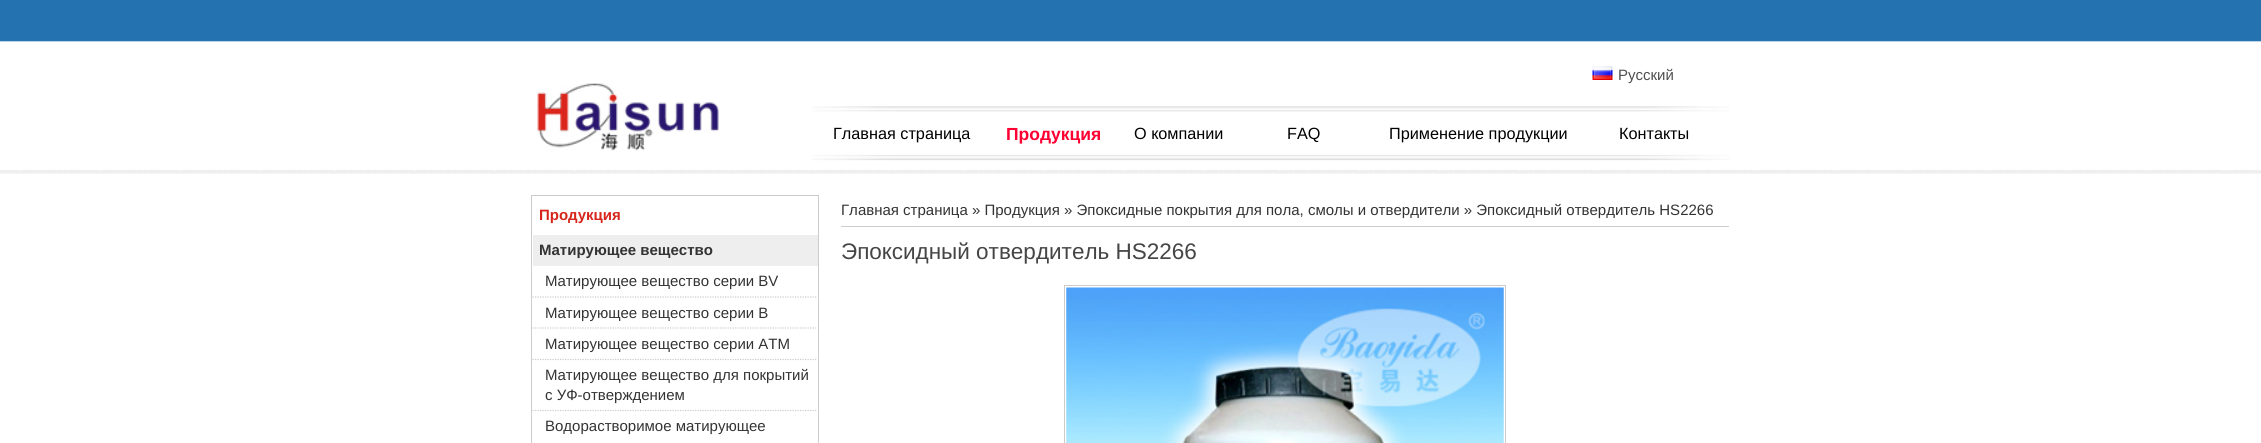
#include <cairo.h>
#include <math.h>
#include <stddef.h>


static void set_color(cairo_t *cr, unsigned color) {
    cairo_set_source_rgb(cr, (color >> 16) / 255.0, (color >> 8 & 255) / 255.0, (color & 255) / 255.0);
}

static void draw_text(cairo_t *cr, double x, double y, const char *s, const char *family, double size, int italic, int bold, unsigned color) {
    cairo_select_font_face(cr, family, italic ? CAIRO_FONT_SLANT_ITALIC : CAIRO_FONT_SLANT_NORMAL,
        bold ? CAIRO_FONT_WEIGHT_BOLD : CAIRO_FONT_WEIGHT_NORMAL);
    cairo_set_font_size(cr, size);
    set_color(cr, color);
    cairo_move_to(cr, x, y);
    cairo_show_text(cr, s);
}

static void fill_rect(cairo_t *cr, double x, double y, double w, double h, unsigned color) {
    set_color(cr, color);
    cairo_rectangle(cr, x, y, w, h);
    cairo_fill(cr);
}

static void draw_image(cairo_t *cr, const char *path, double x, double y, double w, double h) {
    cairo_surface_t *image = cairo_image_surface_create_from_png(path);
    cairo_save(cr);
    cairo_set_source_surface(cr, image, x, y);
    cairo_rectangle(cr, x, y, w, h);
    cairo_fill(cr);
    cairo_restore(cr);
    cairo_surface_destroy(image);
}

int main(void) {
    cairo_surface_t *surface = cairo_image_surface_create(CAIRO_FORMAT_RGB24, 2261, 443);
    cairo_t *cr = cairo_create(surface);
    cairo_font_options_t *options = cairo_font_options_create();
    cairo_font_options_set_hint_metrics(options, CAIRO_HINT_METRICS_OFF);
    cairo_font_options_set_hint_style(options, CAIRO_HINT_STYLE_NONE);
    cairo_set_font_options(cr, options);
    cairo_set_miter_limit(cr, 4);
    set_color(cr, 0xFFFFFF);
    cairo_paint(cr);
    draw_image(cr, "assets/img1.png", 0, 0, 2261, 174);
    draw_image(cr, "assets/img2.png", 1592, 66, 21, 14);
    draw_text(cr, 1618, 80, "Русский", "Liberation Sans", 15, 0, 0, 0x504F4F);
    draw_image(cr, "assets/img3.png", 537, 83, 182, 68);
    draw_image(cr, "assets/img4.png", 812, 106, 918, 55);
    draw_text(cr, 833, 139, "Главная страница", "Liberation Sans", 16.25, 0, 0, 0x000000);
    draw_text(cr, 1006, 140, "Продукция", "Liberation Sans", 17.5, 0, 1, 0xFF0033);
    draw_text(cr, 1134, 139, "О компании", "Liberation Sans", 16.25, 0, 0, 0x000000);
    draw_text(cr, 1287, 139, "FAQ", "Liberation Sans", 16.25, 0, 0, 0x000000);
    draw_text(cr, 1389, 139, "Применение продукции", "Liberation Sans", 16.25, 0, 0, 0x000000);
    draw_text(cr, 1619, 139, "Контакты", "Liberation Sans", 16.25, 0, 0, 0x000000);
    cairo_rectangle(cr, 531.5, 195.5, 287, 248);
    set_color(cr, 0xCCCCCC);
    cairo_set_line_width(cr, 1);
    cairo_stroke(cr);
    draw_text(cr, 539, 220, "Продукция", "Liberation Sans", 15, 0, 1, 0xD6251C);
    fill_rect(cr, 533, 235, 285, 31, 0xEEEEEE);
    draw_text(cr, 539, 255, "Матирующее вещество", "Liberation Sans", 15, 0, 1, 0x333333);
    cairo_new_path(cr);
    cairo_move_to(cr, 532.5, 297);
    cairo_line_to(cr, 817.5, 297);
    set_color(cr, 0xCCCCCC);
    cairo_set_line_width(cr, 1.2);
    cairo_set_dash(cr, (double[]){1.25, 1.25}, 2, 0);
    cairo_stroke(cr);
    draw_text(cr, 545, 286, "Матирующее вещество серии BV", "Liberation Sans", 15, 0, 0, 0x333333);
    cairo_new_path(cr);
    cairo_move_to(cr, 532.5, 328);
    cairo_line_to(cr, 817.5, 328);
    set_color(cr, 0xCCCCCC);
    cairo_stroke(cr);
    draw_text(cr, 545, 318, "Матирующее вещество серии B", "Liberation Sans", 15, 0, 0, 0x333333);
    cairo_new_path(cr);
    cairo_move_to(cr, 532.5, 359.5);
    cairo_line_to(cr, 817.5, 359.5);
    set_color(cr, 0xCCCCCC);
    cairo_stroke(cr);
    draw_text(cr, 545, 349, "Матирующее вещество серии ATM", "Liberation Sans", 15, 0, 0, 0x333333);
    cairo_new_path(cr);
    cairo_move_to(cr, 532.5, 410.5);
    cairo_line_to(cr, 817.5, 410.5);
    set_color(cr, 0xCCCCCC);
    cairo_stroke(cr);
    draw_text(cr, 545, 380, "Матирующее вещество для покрытий", "Liberation Sans", 15, 0, 0, 0x333333);
    draw_text(cr, 545, 400, "с УФ-отверждением", "Liberation Sans", 15, 0, 0, 0x333333);
    draw_text(cr, 545, 431, "Водорастворимое матирующее", "Liberation Sans", 15, 0, 0, 0x333333);
    fill_rect(cr, 841, 226, 888, 1, 0xCCCCCC);
    draw_text(cr, 841, 215, "Главная страница » Продукция » Эпоксидные покрытия для пола, смолы и отвердители » Эпоксидный отвердитель HS2266", "Liberation Sans", 15, 0, 0, 0x333333);
    draw_text(cr, 841, 259, "Эпоксидный отвердитель HS2266", "Liberation Sans", 22.5, 0, 0, 0x454545);
    cairo_rectangle(cr, 1064.5, 285.5, 441, 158);
    set_color(cr, 0xCCCCCC);
    cairo_set_line_width(cr, 1);
    cairo_set_dash(cr, NULL, 0, 0);
    cairo_stroke(cr);
    draw_image(cr, "assets/img5.png", 1066, 287, 438, 156);
    cairo_surface_write_to_png(surface, "output.png");
    cairo_font_options_destroy(options);
    cairo_destroy(cr);
    cairo_surface_destroy(surface);
    return 0;
}
